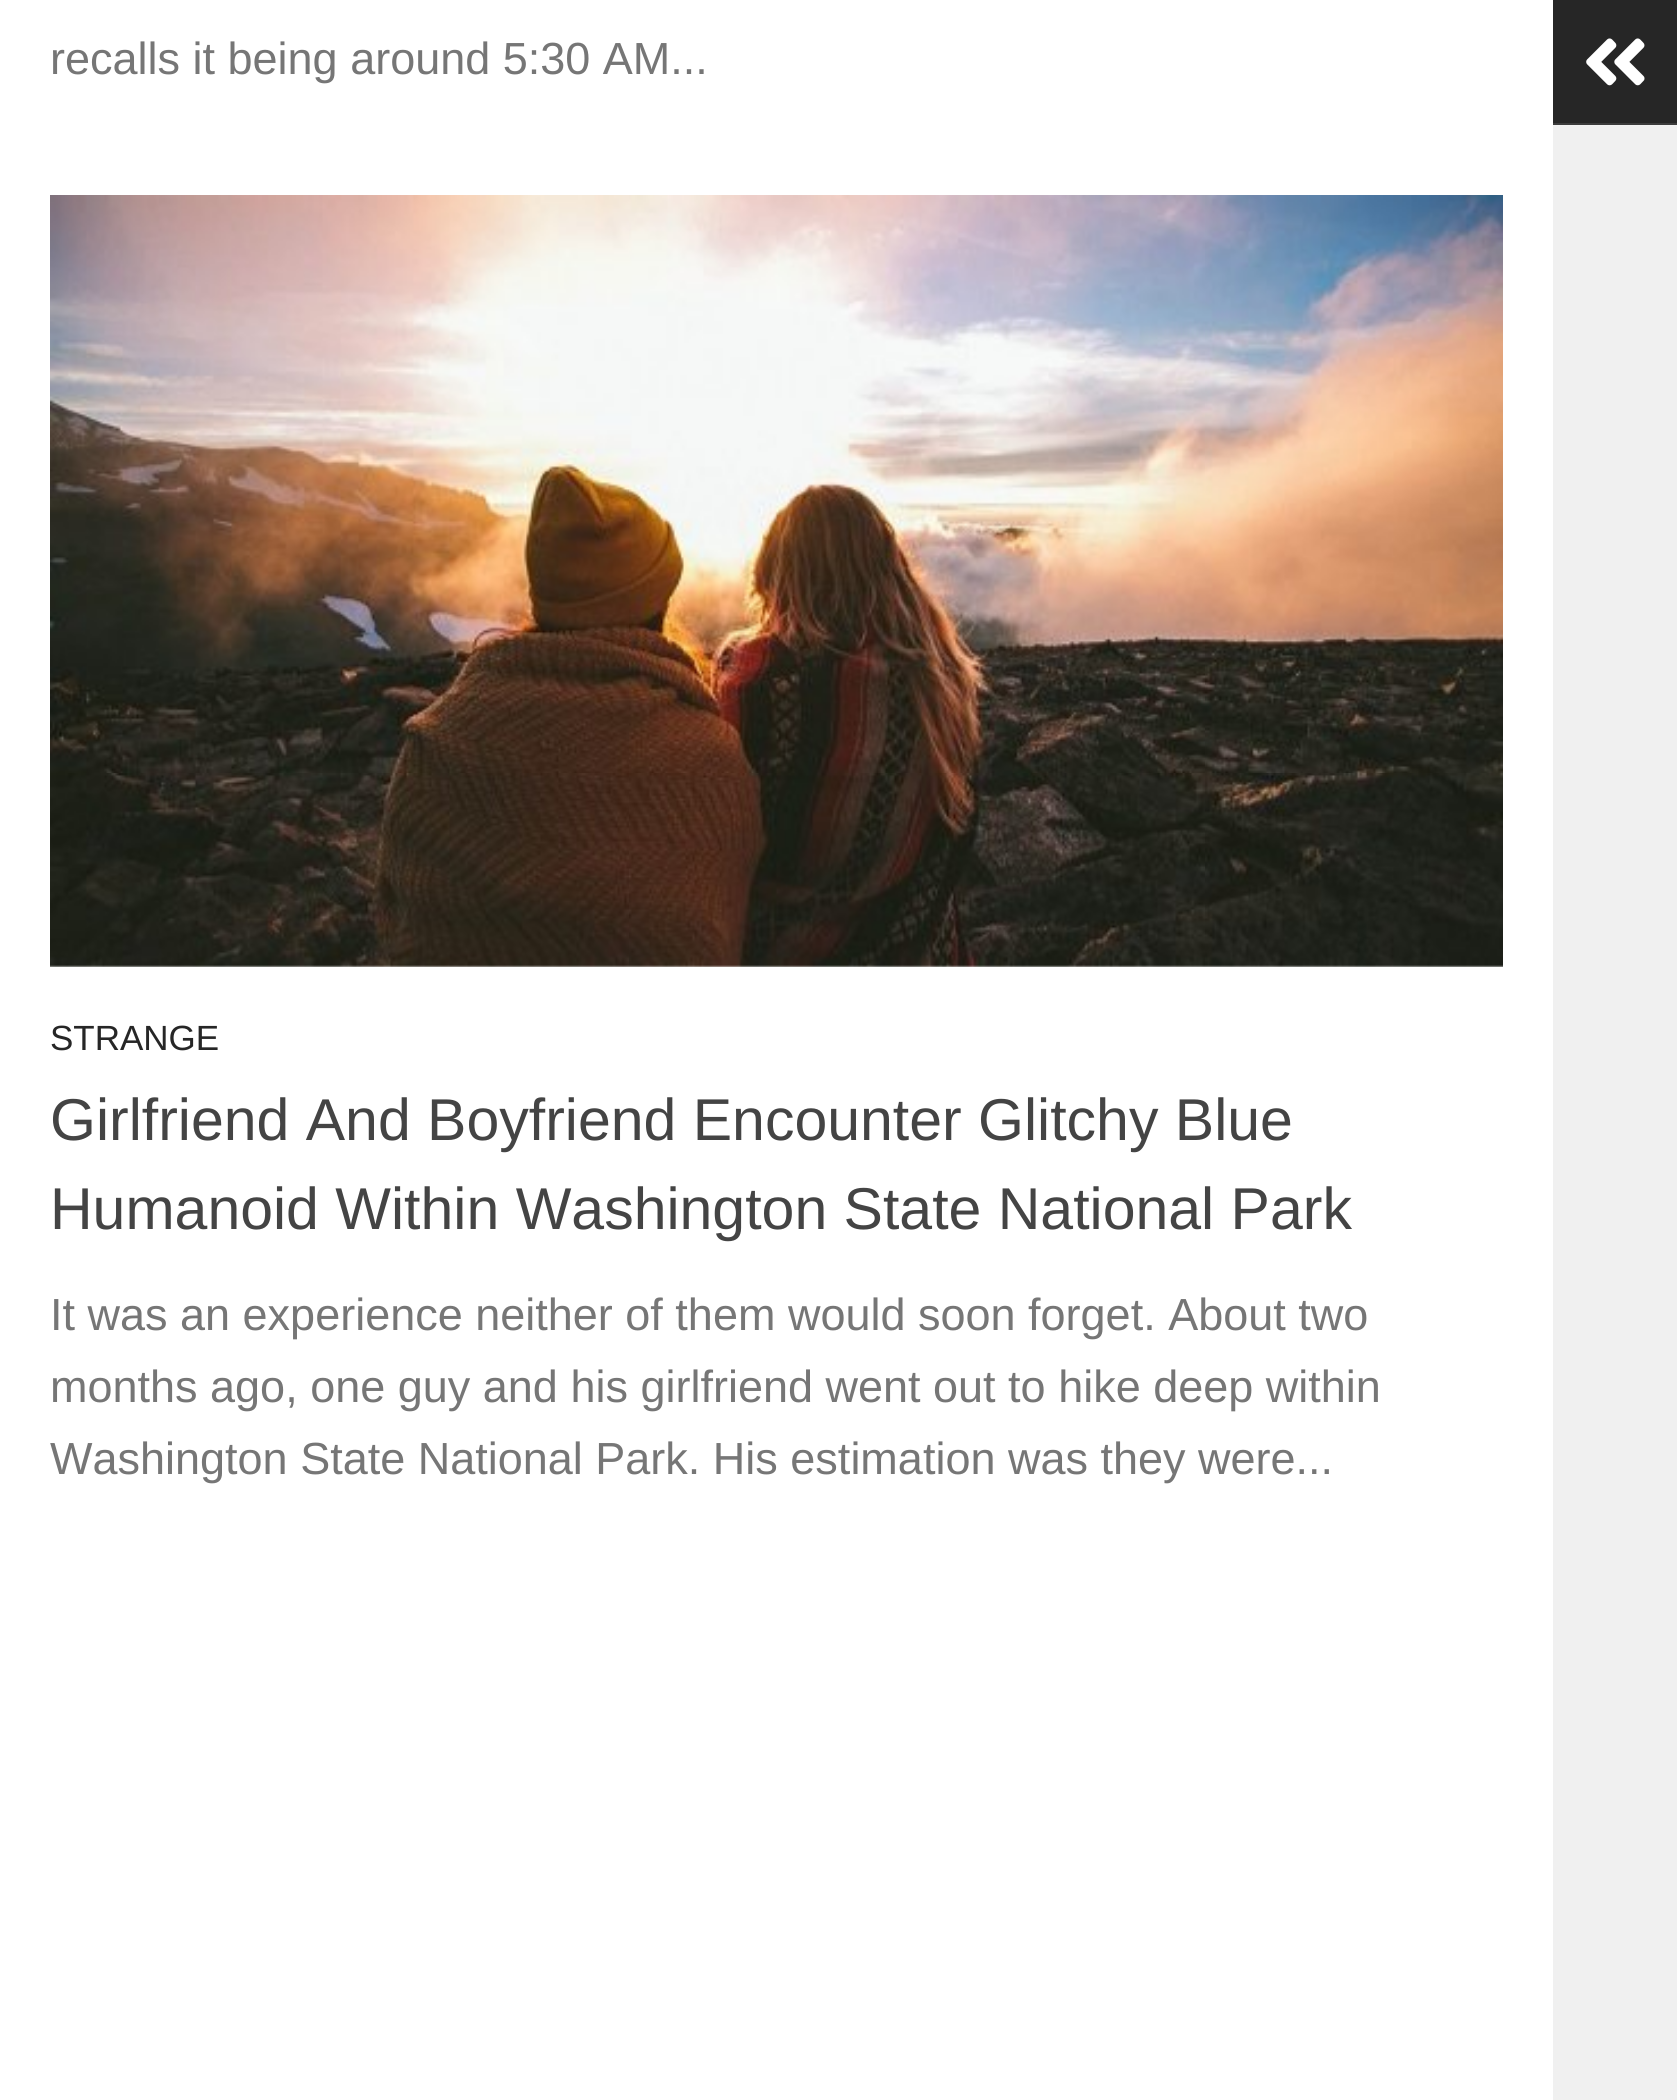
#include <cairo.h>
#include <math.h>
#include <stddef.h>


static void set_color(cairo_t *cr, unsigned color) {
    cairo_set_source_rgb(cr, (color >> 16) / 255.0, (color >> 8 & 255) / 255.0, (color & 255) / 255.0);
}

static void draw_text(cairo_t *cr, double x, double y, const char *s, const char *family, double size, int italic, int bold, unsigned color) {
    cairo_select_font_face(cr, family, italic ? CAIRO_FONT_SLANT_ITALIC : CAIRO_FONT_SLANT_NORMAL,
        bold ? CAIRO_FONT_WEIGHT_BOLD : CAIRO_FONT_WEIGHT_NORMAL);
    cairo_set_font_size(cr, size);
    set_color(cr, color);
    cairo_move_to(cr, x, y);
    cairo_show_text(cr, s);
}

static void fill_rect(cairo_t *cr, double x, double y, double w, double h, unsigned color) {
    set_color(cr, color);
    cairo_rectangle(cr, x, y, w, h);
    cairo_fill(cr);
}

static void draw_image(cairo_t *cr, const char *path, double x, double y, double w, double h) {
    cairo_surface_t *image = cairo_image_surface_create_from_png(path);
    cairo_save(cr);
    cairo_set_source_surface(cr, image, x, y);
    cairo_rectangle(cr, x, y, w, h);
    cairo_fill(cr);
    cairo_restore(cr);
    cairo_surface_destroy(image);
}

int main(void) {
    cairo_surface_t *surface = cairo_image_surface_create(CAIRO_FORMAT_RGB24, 1677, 2100);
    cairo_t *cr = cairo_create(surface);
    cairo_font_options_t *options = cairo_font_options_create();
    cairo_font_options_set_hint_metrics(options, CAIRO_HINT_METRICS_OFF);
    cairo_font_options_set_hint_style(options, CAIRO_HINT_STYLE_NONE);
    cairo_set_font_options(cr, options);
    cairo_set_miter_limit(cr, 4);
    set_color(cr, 0xFFFFFF);
    cairo_paint(cr);
    draw_text(cr, 50, 74, "recalls it being around 5:30 AM...", "Liberation Sans", 45, 0, 0, 0x767676);
    draw_image(cr, "assets/img1.png", 50, 195, 1453, 772);
    draw_text(cr, 50, 1050, "STRANGE", "Liberation Sans", 35, 0, 0, 0x262626);
    draw_text(cr, 50, 1140, "Girlfriend And Boyfriend Encounter Glitchy Blue", "Liberation Sans", 59, 0, 0, 0x444444);
    draw_text(cr, 50, 1229, "Humanoid Within Washington State National Park", "Liberation Sans", 59, 0, 0, 0x444444);
    draw_text(cr, 50, 1330, "It was an experience neither of them would soon forget. About two", "Liberation Sans", 45, 0, 0, 0x767676);
    draw_text(cr, 50, 1402, "months ago, one guy and his girlfriend went out to hike deep within", "Liberation Sans", 45, 0, 0, 0x767676);
    draw_text(cr, 50, 1474, "Washington State National Park. His estimation was they were...", "Liberation Sans", 45, 0, 0, 0x767676);
    fill_rect(cr, 1553, 0, 124, 123, 0x262626);
    fill_rect(cr, 1553, 123, 124, 2, 0x3C3C3C);
    draw_image(cr, "assets/img2.png", 1586, 38, 59, 48);
    fill_rect(cr, 1553, 126, 124, 1974, 0xF0F0F0);
    fill_rect(cr, 1553, 125, 124, 1, 0xF2F2F2);
    cairo_surface_write_to_png(surface, "output.png");
    cairo_font_options_destroy(options);
    cairo_destroy(cr);
    cairo_surface_destroy(surface);
    return 0;
}
